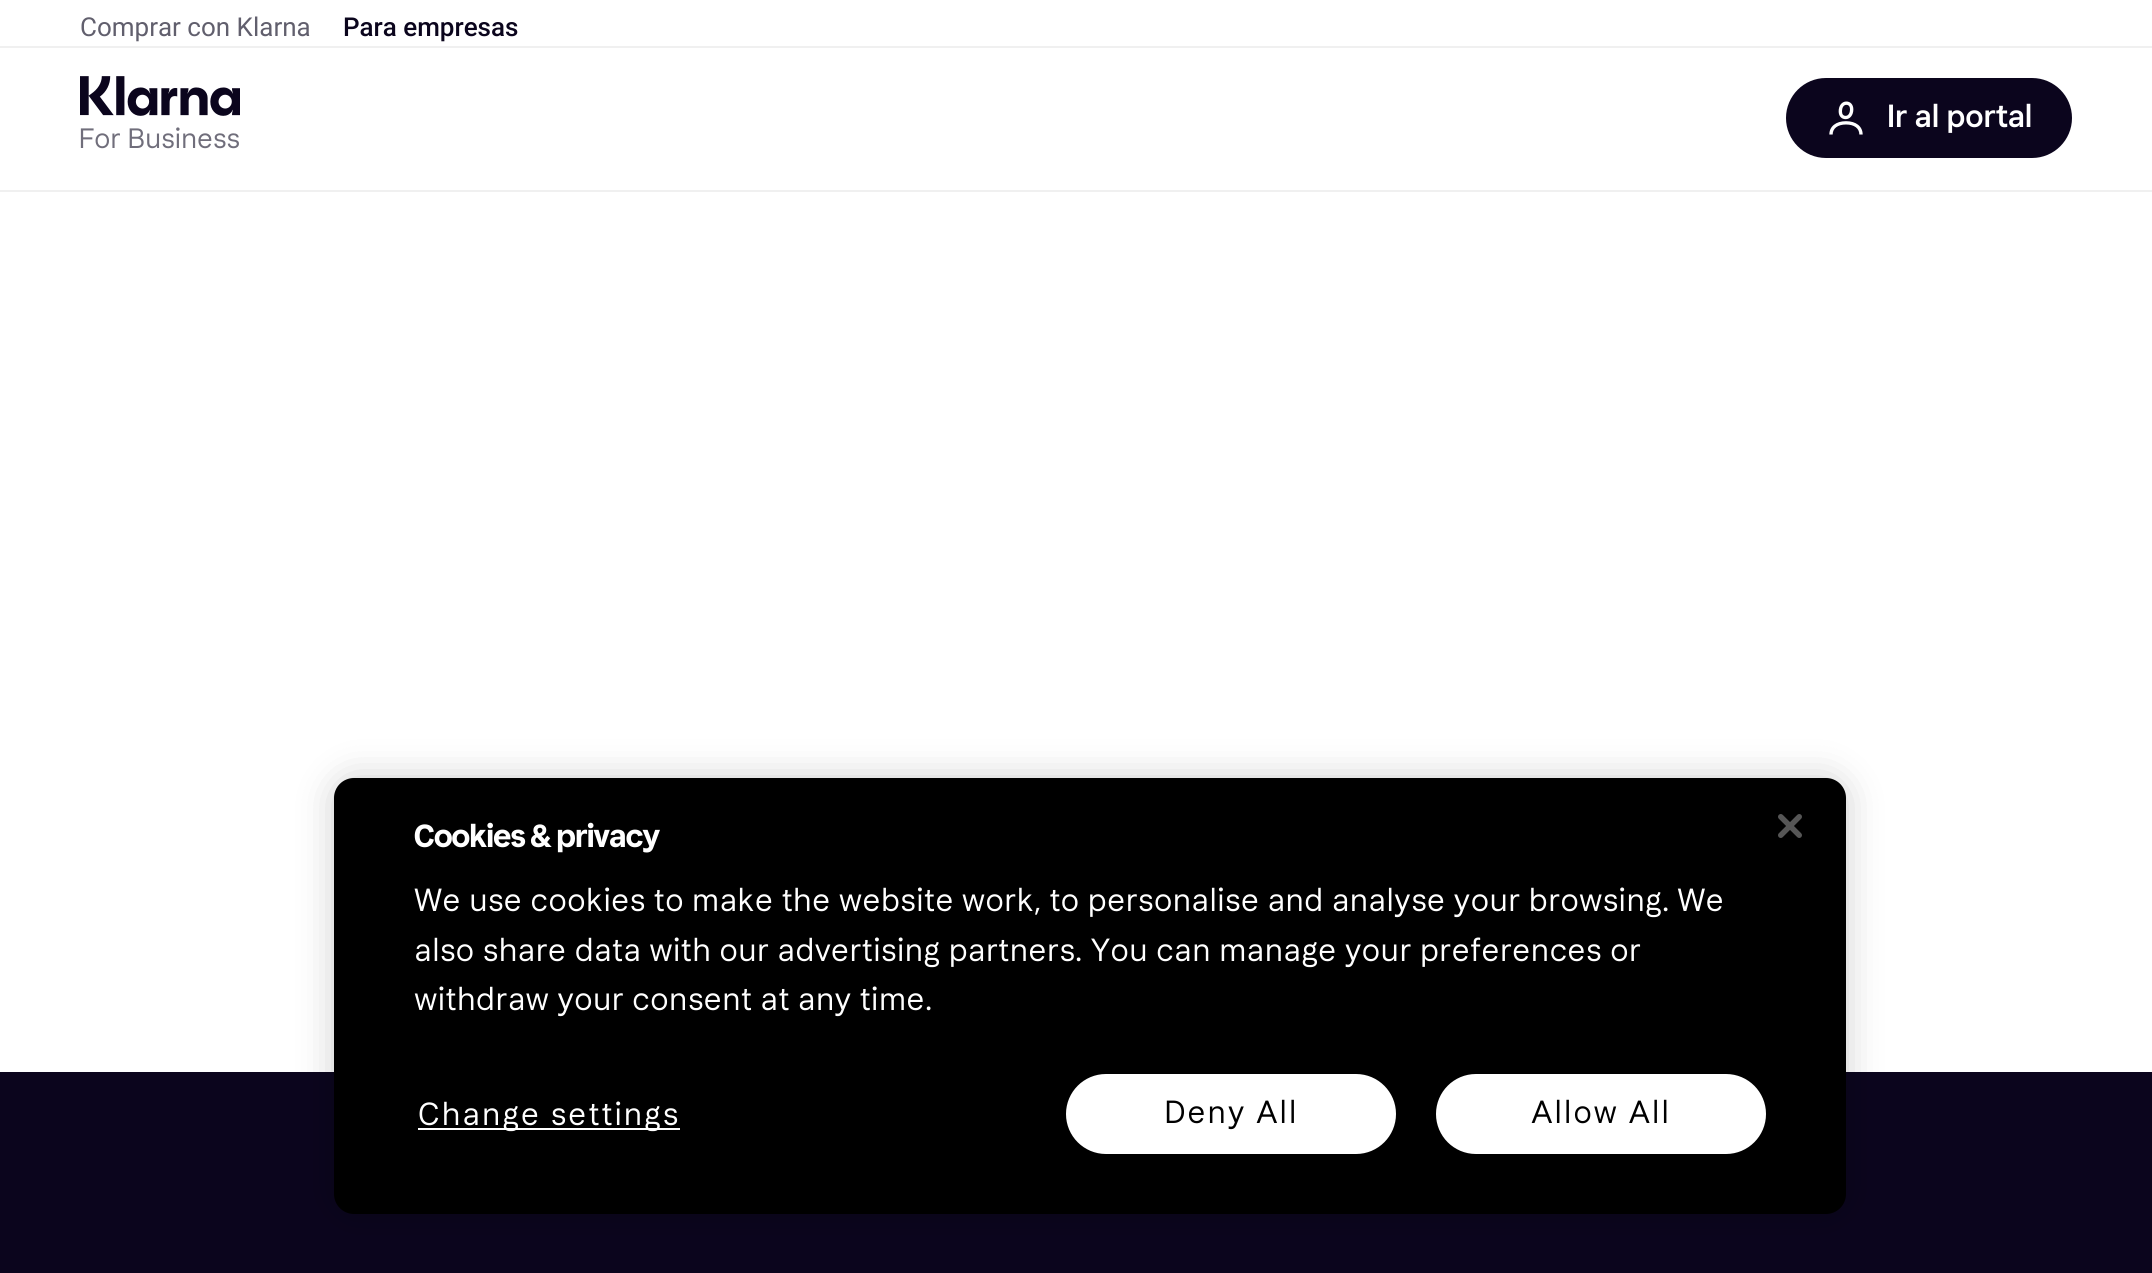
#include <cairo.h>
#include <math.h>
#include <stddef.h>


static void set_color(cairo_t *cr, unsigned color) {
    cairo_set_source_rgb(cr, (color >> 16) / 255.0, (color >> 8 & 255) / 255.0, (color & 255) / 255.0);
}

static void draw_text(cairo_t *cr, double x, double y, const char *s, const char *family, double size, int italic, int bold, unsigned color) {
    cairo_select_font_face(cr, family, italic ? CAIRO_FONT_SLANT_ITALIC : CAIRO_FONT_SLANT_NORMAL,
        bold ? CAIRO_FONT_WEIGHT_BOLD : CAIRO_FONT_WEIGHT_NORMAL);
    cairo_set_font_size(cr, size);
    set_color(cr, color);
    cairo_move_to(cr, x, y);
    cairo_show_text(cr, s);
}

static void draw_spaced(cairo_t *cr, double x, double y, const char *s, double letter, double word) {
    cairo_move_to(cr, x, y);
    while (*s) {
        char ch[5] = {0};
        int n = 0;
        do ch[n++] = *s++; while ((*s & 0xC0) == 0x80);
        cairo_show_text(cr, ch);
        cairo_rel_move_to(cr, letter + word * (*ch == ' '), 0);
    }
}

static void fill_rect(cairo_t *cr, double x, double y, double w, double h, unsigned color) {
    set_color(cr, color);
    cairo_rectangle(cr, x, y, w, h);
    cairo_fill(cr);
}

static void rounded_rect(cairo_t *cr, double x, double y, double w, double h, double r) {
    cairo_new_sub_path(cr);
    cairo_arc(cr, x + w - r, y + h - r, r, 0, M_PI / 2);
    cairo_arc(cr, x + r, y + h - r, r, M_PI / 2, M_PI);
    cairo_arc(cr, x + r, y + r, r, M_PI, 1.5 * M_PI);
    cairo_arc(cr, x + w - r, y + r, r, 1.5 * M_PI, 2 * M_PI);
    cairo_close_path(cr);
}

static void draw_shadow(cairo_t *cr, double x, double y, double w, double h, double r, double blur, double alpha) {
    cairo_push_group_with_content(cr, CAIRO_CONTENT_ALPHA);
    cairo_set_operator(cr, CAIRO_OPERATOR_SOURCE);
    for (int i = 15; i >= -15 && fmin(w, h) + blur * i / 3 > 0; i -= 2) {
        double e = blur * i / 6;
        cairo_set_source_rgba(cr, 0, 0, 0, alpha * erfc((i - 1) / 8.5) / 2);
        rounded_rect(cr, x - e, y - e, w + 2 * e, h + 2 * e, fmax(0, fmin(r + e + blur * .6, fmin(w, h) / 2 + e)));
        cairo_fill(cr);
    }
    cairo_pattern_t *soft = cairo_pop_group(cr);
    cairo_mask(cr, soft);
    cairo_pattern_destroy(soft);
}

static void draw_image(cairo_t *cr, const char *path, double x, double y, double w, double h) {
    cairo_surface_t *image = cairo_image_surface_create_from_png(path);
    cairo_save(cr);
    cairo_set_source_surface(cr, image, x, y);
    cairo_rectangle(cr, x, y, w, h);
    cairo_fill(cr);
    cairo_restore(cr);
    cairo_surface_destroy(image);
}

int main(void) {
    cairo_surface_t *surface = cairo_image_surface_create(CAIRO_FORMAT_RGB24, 2152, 1273);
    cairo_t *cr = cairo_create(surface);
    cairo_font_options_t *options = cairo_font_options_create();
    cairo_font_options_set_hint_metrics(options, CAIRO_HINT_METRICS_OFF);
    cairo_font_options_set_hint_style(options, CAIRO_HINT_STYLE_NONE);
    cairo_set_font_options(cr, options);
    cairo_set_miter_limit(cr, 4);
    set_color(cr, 0xFFFFFF);
    cairo_paint(cr);
    fill_rect(cr, 0, 190, 2152, 2, 0xF0F0F0);
    draw_text(cr, 80, 36, "Comprar con Klarna", "Roboto", 26, 0, 0, 0x615F6D);
    draw_text(cr, 343, 36, "Para empresas", "Roboto Medium", 26, 0, 0, 0x0B051D);
    fill_rect(cr, 0, 46, 2152, 2, 0xF0F0F0);
    draw_image(cr, "assets/img1.png", 80, 76, 160, 73);
    set_color(cr, 0x0B051D);
    rounded_rect(cr, 1786, 78, 286, 80, 40);
    cairo_fill(cr);
    draw_image(cr, "assets/img2.png", 1829, 101, 34, 34);
    cairo_select_font_face(cr, "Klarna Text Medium", CAIRO_FONT_SLANT_NORMAL, CAIRO_FONT_WEIGHT_NORMAL);
    cairo_set_font_size(cr, 32);
    set_color(cr, 0xFFFFFF);
    draw_spaced(cr, 1887, 127, "Ir al portal", -0.1, 0);
    fill_rect(cr, 0, 1072, 2152, 201, 0x0B051D);
    set_color(cr, 0x000000);
    draw_shadow(cr, 334, 778, 1512, 436, 20, 18, 0.2);
    set_color(cr, 0x000000);
    rounded_rect(cr, 334, 778, 1512, 436, 20);
    cairo_fill(cr);
    cairo_select_font_face(cr, "Klarna Text", CAIRO_FONT_SLANT_NORMAL, CAIRO_FONT_WEIGHT_BOLD);
    set_color(cr, 0xFFFFFF);
    draw_spaced(cr, 414, 847, "Cookies & privacy", -0.4, 0);
    draw_text(cr, 414, 911, "We use cookies to make the website work, to personalise and analyse your browsing. We", "Klarna Text", 32, 0, 0, 0xFFFFFF);
    draw_text(cr, 414, 961, "also share data with our advertising partners. You can manage your preferences or", "Klarna Text", 32, 0, 0, 0xFFFFFF);
    draw_text(cr, 414, 1010, "withdraw your consent at any time.", "Klarna Text", 32, 0, 0, 0xFFFFFF);
    draw_image(cr, "assets/img3.png", 1778, 814, 24, 24);
    fill_rect(cr, 418, 1128, 262, 2, 0xFFFFFF);
    draw_spaced(cr, 418, 1125, "Change settings", 1.6, 0);
    rounded_rect(cr, 1067, 1075, 328, 78, 39);
    cairo_fill_preserve(cr);
    cairo_stroke(cr);
    set_color(cr, 0x000000);
    draw_spaced(cr, 1164, 1123, "Deny All", 1.6, 0);
    set_color(cr, 0xFFFFFF);
    rounded_rect(cr, 1437, 1075, 328, 78, 39);
    cairo_fill_preserve(cr);
    cairo_stroke(cr);
    set_color(cr, 0x000000);
    draw_spaced(cr, 1531, 1123, "Allow All", 1.6, 0);
    cairo_surface_write_to_png(surface, "output.png");
    cairo_font_options_destroy(options);
    cairo_destroy(cr);
    cairo_surface_destroy(surface);
    return 0;
}
